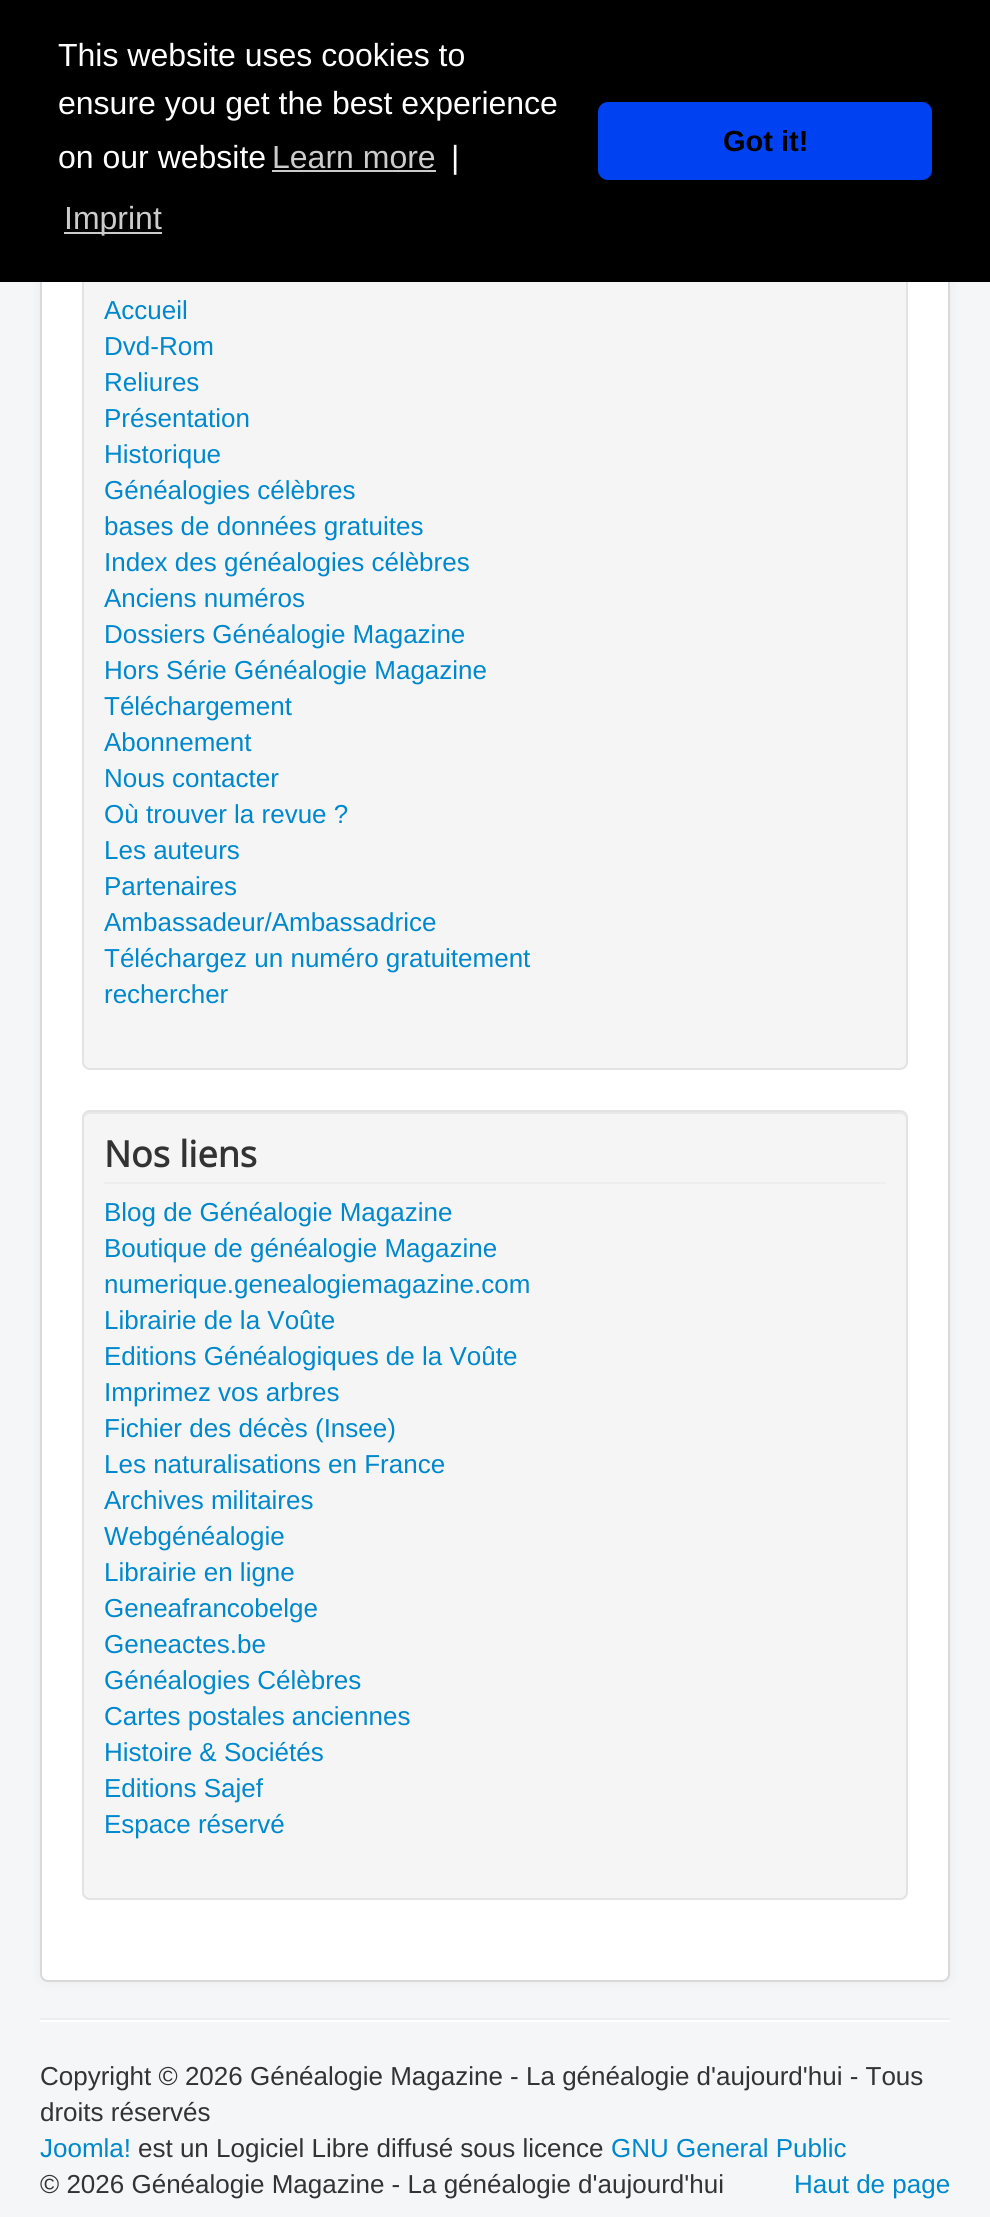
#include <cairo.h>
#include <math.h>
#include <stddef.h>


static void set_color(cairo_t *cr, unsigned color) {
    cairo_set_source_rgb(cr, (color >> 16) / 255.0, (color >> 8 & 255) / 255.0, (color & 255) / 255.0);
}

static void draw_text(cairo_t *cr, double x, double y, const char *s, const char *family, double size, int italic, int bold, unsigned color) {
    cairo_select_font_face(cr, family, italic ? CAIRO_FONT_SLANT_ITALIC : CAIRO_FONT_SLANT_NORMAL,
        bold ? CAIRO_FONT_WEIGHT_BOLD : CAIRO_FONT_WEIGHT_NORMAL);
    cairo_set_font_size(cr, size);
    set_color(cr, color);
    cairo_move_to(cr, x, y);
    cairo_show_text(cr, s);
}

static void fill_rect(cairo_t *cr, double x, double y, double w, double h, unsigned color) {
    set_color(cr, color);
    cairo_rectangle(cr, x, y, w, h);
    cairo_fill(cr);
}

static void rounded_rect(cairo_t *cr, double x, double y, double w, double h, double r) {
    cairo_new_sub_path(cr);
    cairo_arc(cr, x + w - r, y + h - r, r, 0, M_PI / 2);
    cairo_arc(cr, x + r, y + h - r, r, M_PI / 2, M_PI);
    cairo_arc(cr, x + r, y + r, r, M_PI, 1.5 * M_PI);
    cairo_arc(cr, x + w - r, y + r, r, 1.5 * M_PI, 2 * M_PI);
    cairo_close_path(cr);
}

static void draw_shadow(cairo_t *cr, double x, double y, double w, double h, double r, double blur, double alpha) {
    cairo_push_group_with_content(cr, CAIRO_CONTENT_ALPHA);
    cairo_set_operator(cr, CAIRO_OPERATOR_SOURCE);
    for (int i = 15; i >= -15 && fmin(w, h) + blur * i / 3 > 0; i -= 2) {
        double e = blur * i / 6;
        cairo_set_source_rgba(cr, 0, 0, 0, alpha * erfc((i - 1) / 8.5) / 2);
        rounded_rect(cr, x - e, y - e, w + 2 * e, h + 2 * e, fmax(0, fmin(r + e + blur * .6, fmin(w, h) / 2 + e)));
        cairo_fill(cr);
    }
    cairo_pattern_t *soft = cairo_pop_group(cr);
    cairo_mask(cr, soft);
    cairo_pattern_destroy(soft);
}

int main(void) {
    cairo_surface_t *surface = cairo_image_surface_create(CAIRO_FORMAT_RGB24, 990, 2217);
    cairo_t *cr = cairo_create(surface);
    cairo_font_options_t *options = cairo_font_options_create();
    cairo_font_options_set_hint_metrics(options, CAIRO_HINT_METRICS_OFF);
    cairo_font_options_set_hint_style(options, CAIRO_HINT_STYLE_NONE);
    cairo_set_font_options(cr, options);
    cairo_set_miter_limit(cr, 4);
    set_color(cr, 0xF4F6F7);
    cairo_paint(cr);
    set_color(cr, 0x000000);
    draw_shadow(cr, 40, -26, 910, 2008, 8, 6, 0.05);
    set_color(cr, 0xFFFFFF);
    rounded_rect(cr, 40, -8, 910, 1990, 8);
    cairo_fill(cr);
    rounded_rect(cr, 41, -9, 908, 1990, 7);
    cairo_set_source_rgba(cr, 0, 0, 0, 0.15);
    cairo_stroke(cr);
    set_color(cr, 0xF5F5F5);
    rounded_rect(cr, 83, 209, 824, 860, 7);
    cairo_fill_preserve(cr);
    set_color(cr, 0xE3E3E3);
    cairo_stroke(cr);
    fill_rect(cr, 0, 0, 990, 282, 0x000000);
    draw_text(cr, 58, 66, "This website uses cookies to", "Liberation Sans", 32, 0, 0, 0xFFFFFF);
    draw_text(cr, 58, 114, "ensure you get the best experience", "Liberation Sans", 32, 0, 0, 0xFFFFFF);
    draw_text(cr, 58, 168, "on our website", "Liberation Sans", 32, 0, 0, 0xFFFFFF);
    draw_text(cr, 272, 168, "Learn more", "Liberation Sans", 32, 0, 0, 0xCCCCCC);
    fill_rect(cr, 272, 170, 164, 2, 0xCCCCCC);
    draw_text(cr, 451, 168, "|", "Liberation Sans", 32, 0, 0, 0xFFFFFF);
    fill_rect(cr, 64, 232, 98, 2, 0xCCCCCC);
    draw_text(cr, 64, 229, "Imprint", "Liberation Sans", 32, 0, 0, 0xCCCCCC);
    set_color(cr, 0x0041F2);
    rounded_rect(cr, 598, 102, 334, 78, 10);
    cairo_fill(cr);
    draw_text(cr, 723, 151, "Got it!", "Liberation Sans", 29, 0, 1, 0x000000);
    draw_text(cr, 104, 319, "Accueil", "Liberation Sans", 26, 0, 0, 0x0088CC);
    draw_text(cr, 104, 355, "Dvd-Rom", "Liberation Sans", 26, 0, 0, 0x0088CC);
    draw_text(cr, 104, 391, "Reliures", "Liberation Sans", 26, 0, 0, 0x0088CC);
    draw_text(cr, 104, 427, "Présentation", "Liberation Sans", 26, 0, 0, 0x0088CC);
    draw_text(cr, 104, 463, "Historique", "Liberation Sans", 26, 0, 0, 0x0088CC);
    draw_text(cr, 104, 499, "Généalogies célèbres", "Liberation Sans", 26, 0, 0, 0x0088CC);
    draw_text(cr, 104, 535, "bases de données gratuites", "Liberation Sans", 26, 0, 0, 0x0088CC);
    draw_text(cr, 104, 571, "Index des généalogies célèbres", "Liberation Sans", 26, 0, 0, 0x0088CC);
    draw_text(cr, 104, 607, "Anciens numéros", "Liberation Sans", 26, 0, 0, 0x0088CC);
    draw_text(cr, 104, 643, "Dossiers Généalogie Magazine", "Liberation Sans", 26, 0, 0, 0x0088CC);
    draw_text(cr, 104, 679, "Hors Série Généalogie Magazine", "Liberation Sans", 26, 0, 0, 0x0088CC);
    draw_text(cr, 104, 715, "Téléchargement", "Liberation Sans", 26, 0, 0, 0x0088CC);
    draw_text(cr, 104, 751, "Abonnement", "Liberation Sans", 26, 0, 0, 0x0088CC);
    draw_text(cr, 104, 787, "Nous contacter", "Liberation Sans", 26, 0, 0, 0x0088CC);
    draw_text(cr, 104, 823, "Où trouver la revue ?", "Liberation Sans", 26, 0, 0, 0x0088CC);
    draw_text(cr, 104, 859, "Les auteurs", "Liberation Sans", 26, 0, 0, 0x0088CC);
    draw_text(cr, 104, 895, "Partenaires", "Liberation Sans", 26, 0, 0, 0x0088CC);
    draw_text(cr, 104, 931, "Ambassadeur/Ambassadrice", "Liberation Sans", 26, 0, 0, 0x0088CC);
    draw_text(cr, 104, 967, "Téléchargez un numéro gratuitement", "Liberation Sans", 26, 0, 0, 0x0088CC);
    draw_text(cr, 104, 1003, "rechercher", "Liberation Sans", 26, 0, 0, 0x0088CC);
    set_color(cr, 0xF5F5F5);
    rounded_rect(cr, 82, 1110, 826, 790, 8);
    cairo_fill(cr);
    set_color(cr, 0xE9E9E9);
    cairo_new_path(cr);
    cairo_move_to(cr, 90, 1114);
    cairo_line_to(cr, 900, 1114);
    cairo_curve_to(cr, 903, 1114, 906, 1117, 906, 1120);
    cairo_curve_to(cr, 906, 1116, 905, 1112, 900, 1112);
    cairo_line_to(cr, 90, 1112);
    cairo_curve_to(cr, 85, 1112, 84, 1116, 84, 1120);
    cairo_curve_to(cr, 84, 1117, 87, 1114, 90, 1114);
    cairo_close_path(cr);
    cairo_fill(cr);
    rounded_rect(cr, 83, 1111, 824, 788, 7);
    set_color(cr, 0xE3E3E3);
    cairo_stroke(cr);
    fill_rect(cr, 104, 1182, 782, 2, 0xEEEEEE);
    draw_text(cr, 104, 1167, "Nos liens", "Open Sans", 36, 0, 1, 0x333333);
    draw_text(cr, 104, 1221, "Blog de Généalogie Magazine", "Liberation Sans", 26, 0, 0, 0x0088CC);
    draw_text(cr, 104, 1257, "Boutique de généalogie Magazine", "Liberation Sans", 26, 0, 0, 0x0088CC);
    draw_text(cr, 104, 1293, "numerique.genealogiemagazine.com", "Liberation Sans", 26, 0, 0, 0x0088CC);
    draw_text(cr, 104, 1329, "Librairie de la Voûte", "Liberation Sans", 26, 0, 0, 0x0088CC);
    draw_text(cr, 104, 1365, "Editions Généalogiques de la Voûte", "Liberation Sans", 26, 0, 0, 0x0088CC);
    draw_text(cr, 104, 1401, "Imprimez vos arbres", "Liberation Sans", 26, 0, 0, 0x0088CC);
    draw_text(cr, 104, 1437, "Fichier des décès (Insee)", "Liberation Sans", 26, 0, 0, 0x0088CC);
    draw_text(cr, 104, 1473, "Les naturalisations en France", "Liberation Sans", 26, 0, 0, 0x0088CC);
    draw_text(cr, 104, 1509, "Archives militaires", "Liberation Sans", 26, 0, 0, 0x0088CC);
    draw_text(cr, 104, 1545, "Webgénéalogie", "Liberation Sans", 26, 0, 0, 0x0088CC);
    draw_text(cr, 104, 1581, "Librairie en ligne", "Liberation Sans", 26, 0, 0, 0x0088CC);
    draw_text(cr, 104, 1617, "Geneafrancobelge", "Liberation Sans", 26, 0, 0, 0x0088CC);
    draw_text(cr, 104, 1653, "Geneactes.be", "Liberation Sans", 26, 0, 0, 0x0088CC);
    draw_text(cr, 104, 1689, "Généalogies Célèbres", "Liberation Sans", 26, 0, 0, 0x0088CC);
    draw_text(cr, 104, 1725, "Cartes postales anciennes", "Liberation Sans", 26, 0, 0, 0x0088CC);
    draw_text(cr, 104, 1761, "Histoire & Sociétés", "Liberation Sans", 26, 0, 0, 0x0088CC);
    draw_text(cr, 104, 1797, "Editions Sajef", "Liberation Sans", 26, 0, 0, 0x0088CC);
    draw_text(cr, 104, 1833, "Espace réservé", "Liberation Sans", 26, 0, 0, 0x0088CC);
    fill_rect(cr, 40, 2018, 910, 2, 0xEEEEEE);
    fill_rect(cr, 40, 2020, 910, 2, 0xFFFFFF);
    draw_text(cr, 40, 2085, "Copyright © 2026 Généalogie Magazine - La généalogie d'aujourd'hui - Tous", "Liberation Sans", 26, 0, 0, 0x333333);
    draw_text(cr, 40, 2121, "droits réservés", "Liberation Sans", 26, 0, 0, 0x333333);
    draw_text(cr, 40, 2157, "Joomla!", "Liberation Sans", 26, 0, 0, 0x0088CC);
    draw_text(cr, 138, 2157, "est un Logiciel Libre diffusé sous licence", "Liberation Sans", 26, 0, 0, 0x333333);
    draw_text(cr, 611, 2157, "GNU General Public", "Liberation Sans", 26, 0, 0, 0x0088CC);
    draw_text(cr, 40, 2193, "© 2026 Généalogie Magazine - La généalogie d'aujourd'hui", "Liberation Sans", 26, 0, 0, 0x333333);
    draw_text(cr, 794, 2193, "Haut de page", "Liberation Sans", 26, 0, 0, 0x0088CC);
    cairo_surface_write_to_png(surface, "output.png");
    cairo_font_options_destroy(options);
    cairo_destroy(cr);
    cairo_surface_destroy(surface);
    return 0;
}
